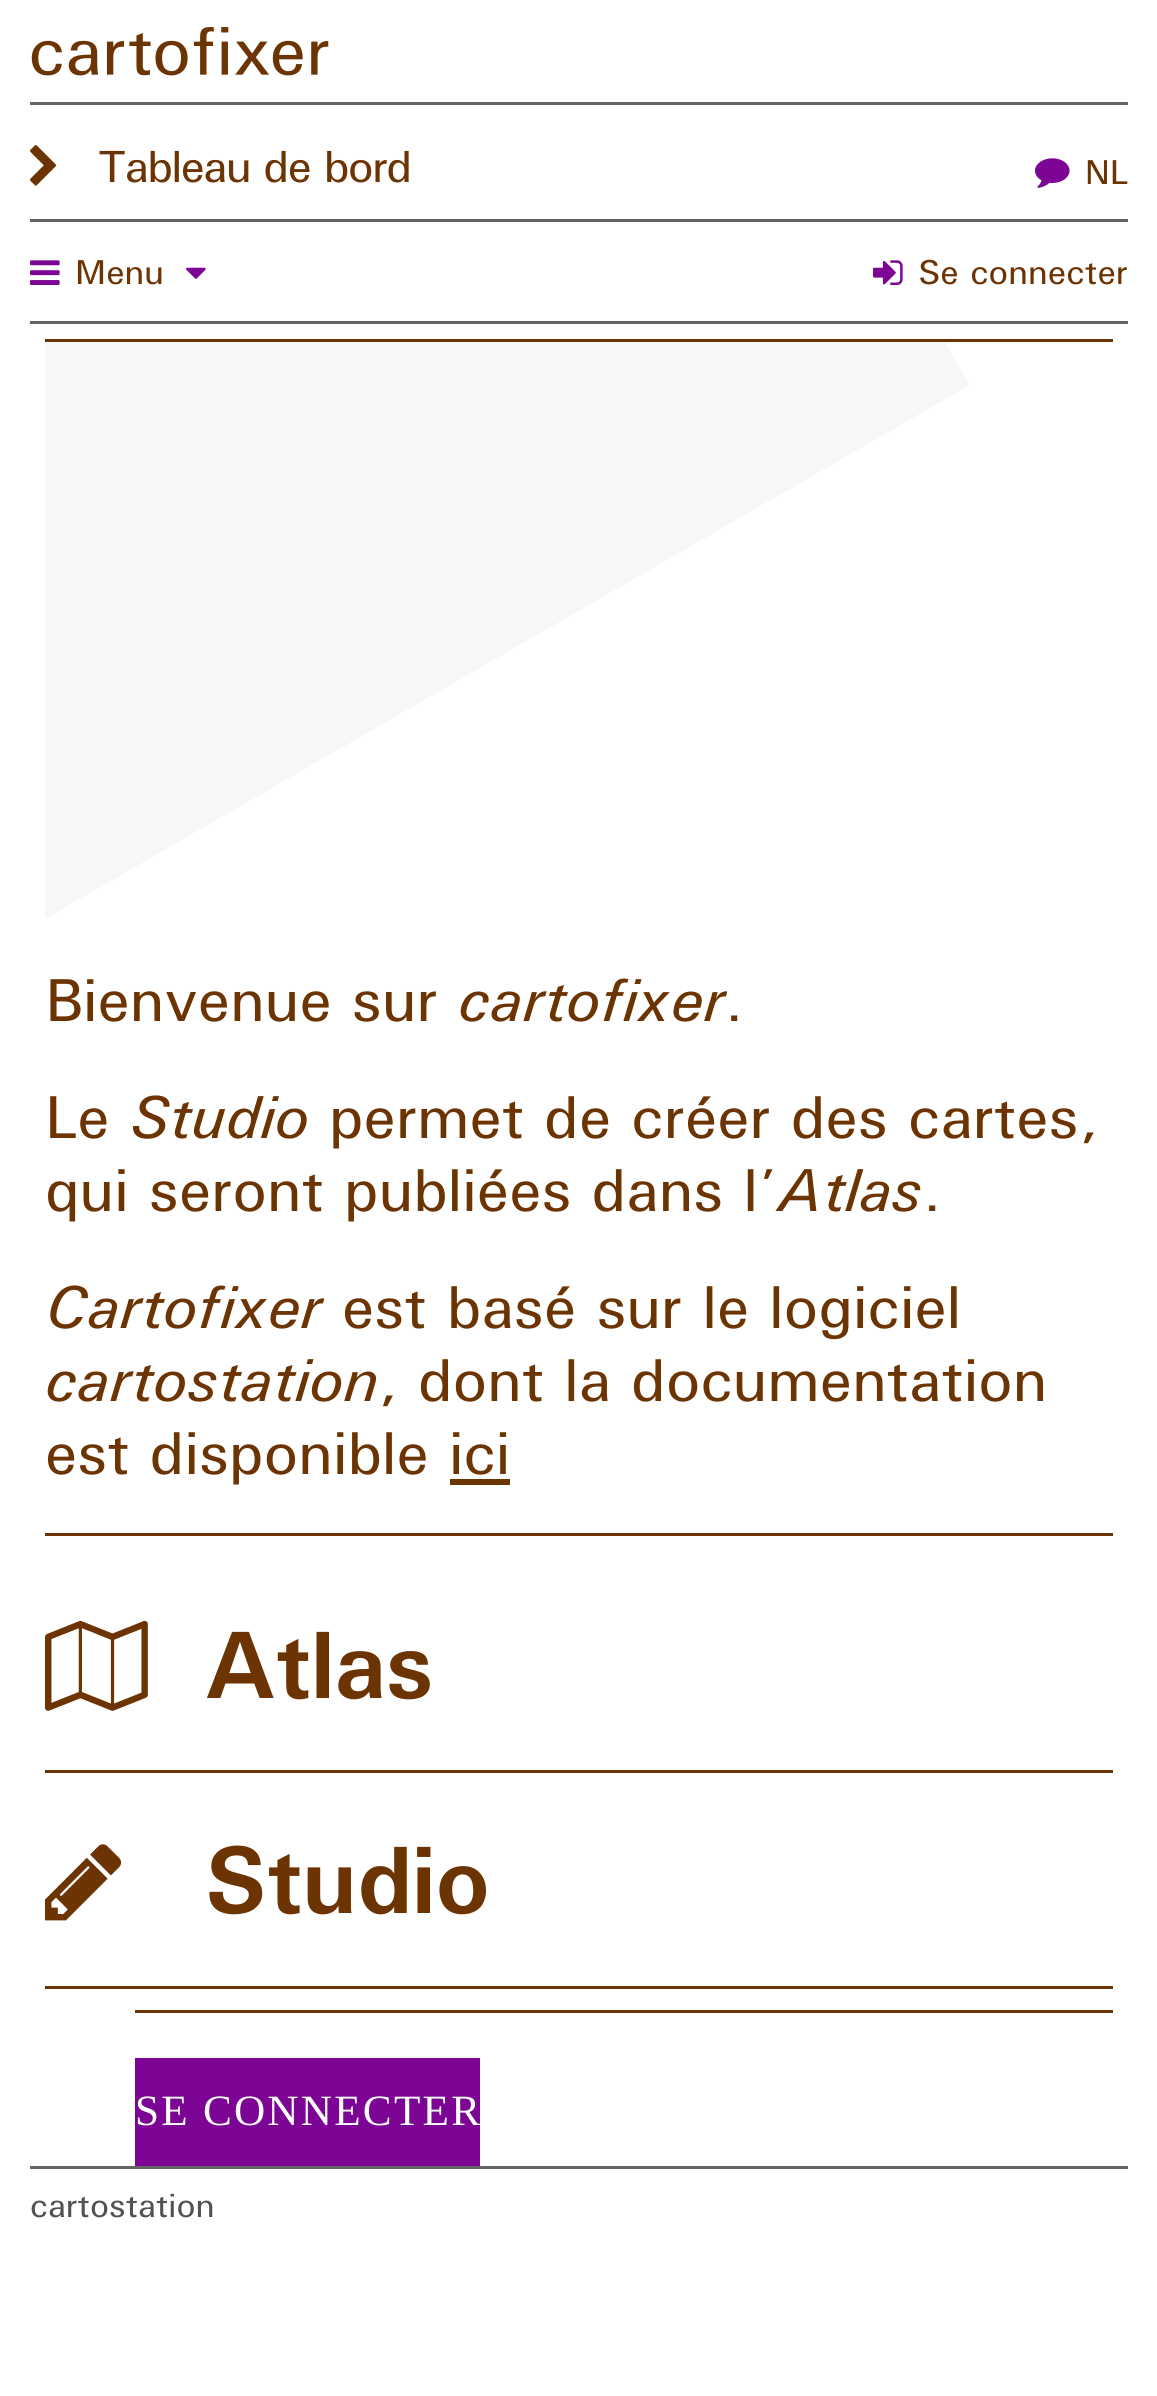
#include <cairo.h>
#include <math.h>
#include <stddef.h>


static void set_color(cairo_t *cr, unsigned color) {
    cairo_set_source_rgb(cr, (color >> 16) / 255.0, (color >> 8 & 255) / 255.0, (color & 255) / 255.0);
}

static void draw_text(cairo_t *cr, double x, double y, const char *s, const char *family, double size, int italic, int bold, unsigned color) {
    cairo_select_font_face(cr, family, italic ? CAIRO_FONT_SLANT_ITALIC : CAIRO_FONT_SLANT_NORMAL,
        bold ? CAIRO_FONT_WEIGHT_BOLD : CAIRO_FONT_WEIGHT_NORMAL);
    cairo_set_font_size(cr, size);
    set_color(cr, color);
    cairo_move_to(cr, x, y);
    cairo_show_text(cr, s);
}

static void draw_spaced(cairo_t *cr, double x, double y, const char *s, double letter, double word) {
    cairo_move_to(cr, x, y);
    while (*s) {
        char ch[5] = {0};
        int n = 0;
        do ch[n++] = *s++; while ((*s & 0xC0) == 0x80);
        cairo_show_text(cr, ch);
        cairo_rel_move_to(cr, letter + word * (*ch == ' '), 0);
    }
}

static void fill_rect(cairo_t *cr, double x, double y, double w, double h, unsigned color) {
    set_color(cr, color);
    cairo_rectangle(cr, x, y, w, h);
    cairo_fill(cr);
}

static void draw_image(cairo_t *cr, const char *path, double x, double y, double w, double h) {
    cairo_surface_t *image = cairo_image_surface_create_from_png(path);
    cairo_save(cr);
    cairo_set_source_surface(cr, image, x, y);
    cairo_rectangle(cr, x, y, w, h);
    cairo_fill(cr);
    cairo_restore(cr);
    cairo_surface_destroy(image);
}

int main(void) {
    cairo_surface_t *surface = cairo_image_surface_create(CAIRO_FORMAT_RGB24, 1157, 2396);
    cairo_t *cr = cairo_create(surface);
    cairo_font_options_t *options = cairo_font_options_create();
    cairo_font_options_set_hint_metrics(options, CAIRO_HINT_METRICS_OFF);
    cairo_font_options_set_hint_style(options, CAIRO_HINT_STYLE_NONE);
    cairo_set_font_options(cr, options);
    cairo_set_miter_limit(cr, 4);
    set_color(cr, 0xFFFFFF);
    cairo_paint(cr);
    fill_rect(cr, 30, 321, 1098, 3, 0x646464);
    fill_rect(cr, 30, 102, 1098, 3, 0x646464);
    draw_image(cr, "assets/img1.png", 31, 27, 298, 49);
    draw_image(cr, "assets/img2.png", 30, 145, 26, 41);
    cairo_select_font_face(cr, "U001", CAIRO_FONT_SLANT_NORMAL, CAIRO_FONT_WEIGHT_NORMAL);
    cairo_set_font_size(cr, 45);
    set_color(cr, 0x6C3403);
    draw_spaced(cr, 98, 182, "Tableau de bord", -1.5, 0);
    fill_rect(cr, 30, 219, 1098, 3, 0x646464);
    draw_image(cr, "assets/img3.png", 1035, 158, 35, 30);
    draw_text(cr, 1085, 184, "NL", "U001", 34.5, 0, 0, 0x6C3403);
    draw_image(cr, "assets/img4.png", 30, 260, 30, 25);
    draw_text(cr, 75, 284, "Menu", "U001", 34.5, 0, 0, 0x6C3403);
    draw_image(cr, "assets/img5.png", 186, 267, 20, 12);
    draw_image(cr, "assets/img6.png", 873, 260, 30, 25);
    draw_text(cr, 918, 284, "Se connecter", "U001", 34.5, 0, 0, 0x6C3403);
    fill_rect(cr, 45, 339, 1068, 3, 0x6C3403);
    cairo_save(cr);
    cairo_rectangle(cr, 45, 342, 1068, 576);
    cairo_clip(cr);
    set_color(cr, 0xF7F7F7);
    cairo_new_path(cr);
    cairo_move_to(cr, -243, 420);
    cairo_line_to(cr, 682, -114);
    cairo_line_to(cr, 970, 385);
    cairo_line_to(cr, 45, 919);
    cairo_close_path(cr);
    cairo_fill(cr);
    cairo_restore(cr);
    draw_text(cr, 45, 1021, "Bienvenue sur", "U001", 60.5, 0, 0, 0x6C3403);
    draw_text(cr, 458, 1021, "cartofixer", "U001", 60.5, 1, 0, 0x6C3403);
    draw_text(cr, 724, 1021, ".", "U001", 60.5, 0, 0, 0x6C3403);
    draw_text(cr, 45, 1138, "Le", "U001", 60.5, 0, 0, 0x6C3403);
    draw_text(cr, 130, 1138, "Studio", "U001", 60.5, 1, 0, 0x6C3403);
    draw_text(cr, 329, 1138, "permet de créer des cartes,", "U001", 60.5, 0, 0, 0x6C3403);
    draw_text(cr, 45, 1211, "qui seront publiées dans l’", "U001", 60.5, 0, 0, 0x6C3403);
    draw_text(cr, 778, 1211, "Atlas", "U001", 60.5, 1, 0, 0x6C3403);
    draw_text(cr, 922, 1211, ".", "U001", 60.5, 0, 0, 0x6C3403);
    draw_text(cr, 45, 1328, "Cartofixer", "U001", 60.5, 1, 0, 0x6C3403);
    draw_text(cr, 342, 1328, "est basé sur le logiciel", "U001", 60.5, 0, 0, 0x6C3403);
    draw_text(cr, 45, 1401, "cartostation", "U001", 60.5, 1, 0, 0x6C3403);
    draw_text(cr, 378, 1401, ", dont la documentation", "U001", 60.5, 0, 0, 0x6C3403);
    draw_text(cr, 45, 1474, "est disponible ici", "U001", 60.5, 0, 0, 0x6C3403);
    fill_rect(cr, 450, 1479, 60, 6, 0x6C3403);
    fill_rect(cr, 45, 1533, 1068, 3, 0x6C3403);
    fill_rect(cr, 45, 1770, 1068, 3, 0x6C3403);
    draw_image(cr, "assets/img7.png", 45, 1620, 103, 91);
    draw_text(cr, 205, 1698, "Atlas", "U001", 96, 0, 1, 0x6C3403);
    fill_rect(cr, 45, 1986, 1068, 3, 0x6C3403);
    draw_image(cr, "assets/img8.png", 45, 1844, 77, 77);
    draw_text(cr, 205, 1913, "Studio", "U001", 96, 0, 1, 0x6C3403);
    fill_rect(cr, 135, 2010, 978, 3, 0x6C3403);
    fill_rect(cr, 135, 2058, 345, 108, 0x7C0595);
    cairo_select_font_face(cr, "Liberation Serif", CAIRO_FONT_SLANT_NORMAL, CAIRO_FONT_WEIGHT_NORMAL);
    cairo_set_font_size(cr, 43.25);
    set_color(cr, 0xFFFFFF);
    draw_spaced(cr, 135, 2125, "SE CONNECTER", 2.2, 0);
    fill_rect(cr, 30, 2166, 1098, 3, 0x646464);
    draw_text(cr, 30, 2217, "cartostation", "U001", 33.5, 0, 0, 0x525252);
    cairo_surface_write_to_png(surface, "output.png");
    cairo_font_options_destroy(options);
    cairo_destroy(cr);
    cairo_surface_destroy(surface);
    return 0;
}
